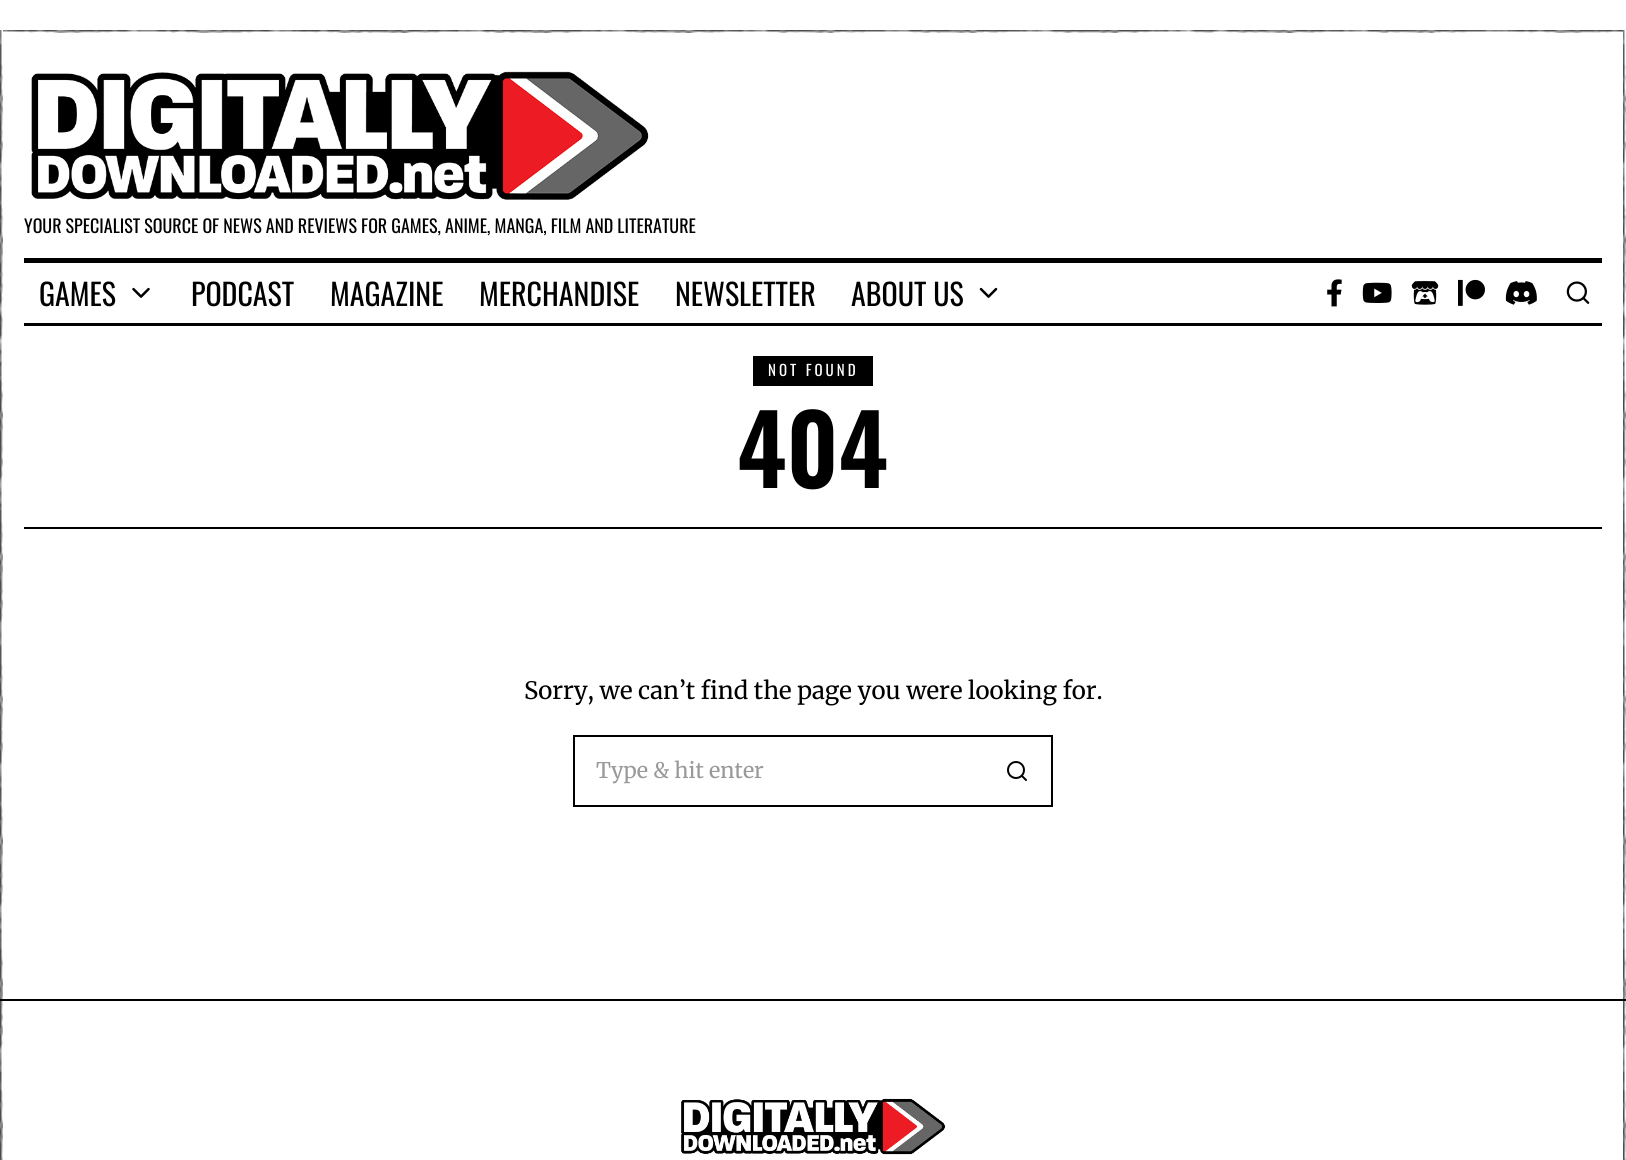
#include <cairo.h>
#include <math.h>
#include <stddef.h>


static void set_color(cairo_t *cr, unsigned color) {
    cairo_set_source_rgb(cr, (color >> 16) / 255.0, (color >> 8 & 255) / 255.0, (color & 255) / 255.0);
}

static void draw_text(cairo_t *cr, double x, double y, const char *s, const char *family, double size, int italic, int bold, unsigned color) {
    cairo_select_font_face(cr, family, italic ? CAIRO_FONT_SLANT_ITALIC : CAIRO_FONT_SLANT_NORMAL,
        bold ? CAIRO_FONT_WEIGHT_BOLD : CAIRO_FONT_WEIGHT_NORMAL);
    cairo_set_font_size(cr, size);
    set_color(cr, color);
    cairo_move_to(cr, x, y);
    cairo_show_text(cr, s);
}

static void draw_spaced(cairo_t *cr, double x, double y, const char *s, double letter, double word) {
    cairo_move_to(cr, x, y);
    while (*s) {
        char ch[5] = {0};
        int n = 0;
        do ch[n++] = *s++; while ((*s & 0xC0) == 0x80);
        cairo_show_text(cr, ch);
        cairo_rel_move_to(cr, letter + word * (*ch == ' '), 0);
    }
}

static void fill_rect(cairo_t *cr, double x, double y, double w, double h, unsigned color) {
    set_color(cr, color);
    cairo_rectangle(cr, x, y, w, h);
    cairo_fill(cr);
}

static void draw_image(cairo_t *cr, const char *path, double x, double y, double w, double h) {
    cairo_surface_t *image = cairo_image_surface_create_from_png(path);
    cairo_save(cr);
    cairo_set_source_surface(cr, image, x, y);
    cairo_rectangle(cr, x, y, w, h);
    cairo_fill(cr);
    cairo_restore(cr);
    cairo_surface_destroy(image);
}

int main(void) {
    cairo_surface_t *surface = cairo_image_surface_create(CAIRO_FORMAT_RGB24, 1626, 1160);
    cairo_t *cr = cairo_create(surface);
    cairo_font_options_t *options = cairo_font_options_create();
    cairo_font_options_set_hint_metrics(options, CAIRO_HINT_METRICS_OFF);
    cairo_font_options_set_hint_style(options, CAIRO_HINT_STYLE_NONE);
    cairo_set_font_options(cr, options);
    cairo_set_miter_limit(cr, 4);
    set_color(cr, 0xFFFFFF);
    cairo_paint(cr);
    draw_image(cr, "assets/img1.png", 0, 30, 3, 1130);
    draw_image(cr, "assets/img2.png", 3, 30, 1620, 3);
    draw_image(cr, "assets/img3.png", 1623, 30, 3, 1130);
    draw_image(cr, "assets/img4.png", 31, 71, 618, 129);
    draw_text(cr, 24, 233, "YOUR SPECIALIST SOURCE OF NEWS AND REVIEWS FOR GAMES, ANIME, MANGA, FILM AND LITERATURE", "Oswald", 18, 0, 0, 0x000000);
    fill_rect(cr, 24, 258, 1578, 5, 0x000000);
    fill_rect(cr, 24, 323, 1578, 3, 0x000000);
    draw_text(cr, 39, 306, "GAMES", "Oswald", 30, 0, 0, 0x000000);
    draw_image(cr, "assets/img5.png", 132, 287, 18, 11);
    draw_text(cr, 191, 306, "PODCAST", "Oswald", 30, 0, 0, 0x000000);
    draw_text(cr, 330, 306, "MAGAZINE", "Oswald", 30, 0, 0, 0x000000);
    draw_text(cr, 479, 306, "MERCHANDISE", "Oswald", 30, 0, 0, 0x000000);
    draw_text(cr, 675, 306, "NEWSLETTER", "Oswald", 30, 0, 0, 0x000000);
    draw_text(cr, 851, 306, "ABOUT US", "Oswald", 30, 0, 0, 0x000000);
    draw_image(cr, "assets/img6.png", 979, 287, 19, 11);
    draw_image(cr, "assets/img7.png", 1327, 279, 15, 28);
    draw_image(cr, "assets/img8.png", 1362, 282, 30, 21);
    draw_image(cr, "assets/img9.png", 1411, 281, 28, 24);
    draw_image(cr, "assets/img10.png", 1458, 279, 27, 27);
    draw_image(cr, "assets/img11.png", 1505, 281, 32, 24);
    draw_image(cr, "assets/img12.png", 1566, 281, 24, 23);
    fill_rect(cr, 24, 527, 1578, 2, 0x000000);
    fill_rect(cr, 753, 356, 120, 30, 0x000000);
    cairo_set_font_size(cr, 15);
    set_color(cr, 0xFFFFFF);
    draw_spaced(cr, 768, 376, "NOT FOUND", 3, 0);
    draw_text(cr, 737, 488, "404", "Oswald SemiBold", 96, 0, 0, 0x000000);
    draw_text(cr, 524, 699, "Sorry, we can’t find the page you were looking for.", "Merriweather", 24, 0, 0, 0x000000);
    cairo_rectangle(cr, 574, 736, 478, 70);
    cairo_stroke(cr);
    draw_text(cr, 596, 778, "Type & hit enter", "Merriweather", 21.5, 0, 0, 0x999999);
    draw_image(cr, "assets/img13.png", 1007, 761, 20, 20);
    fill_rect(cr, 0, 999, 1626, 2, 0x000000);
    draw_image(cr, "assets/img14.png", 681, 1098, 265, 57);
    cairo_surface_write_to_png(surface, "output.png");
    cairo_font_options_destroy(options);
    cairo_destroy(cr);
    cairo_surface_destroy(surface);
    return 0;
}
